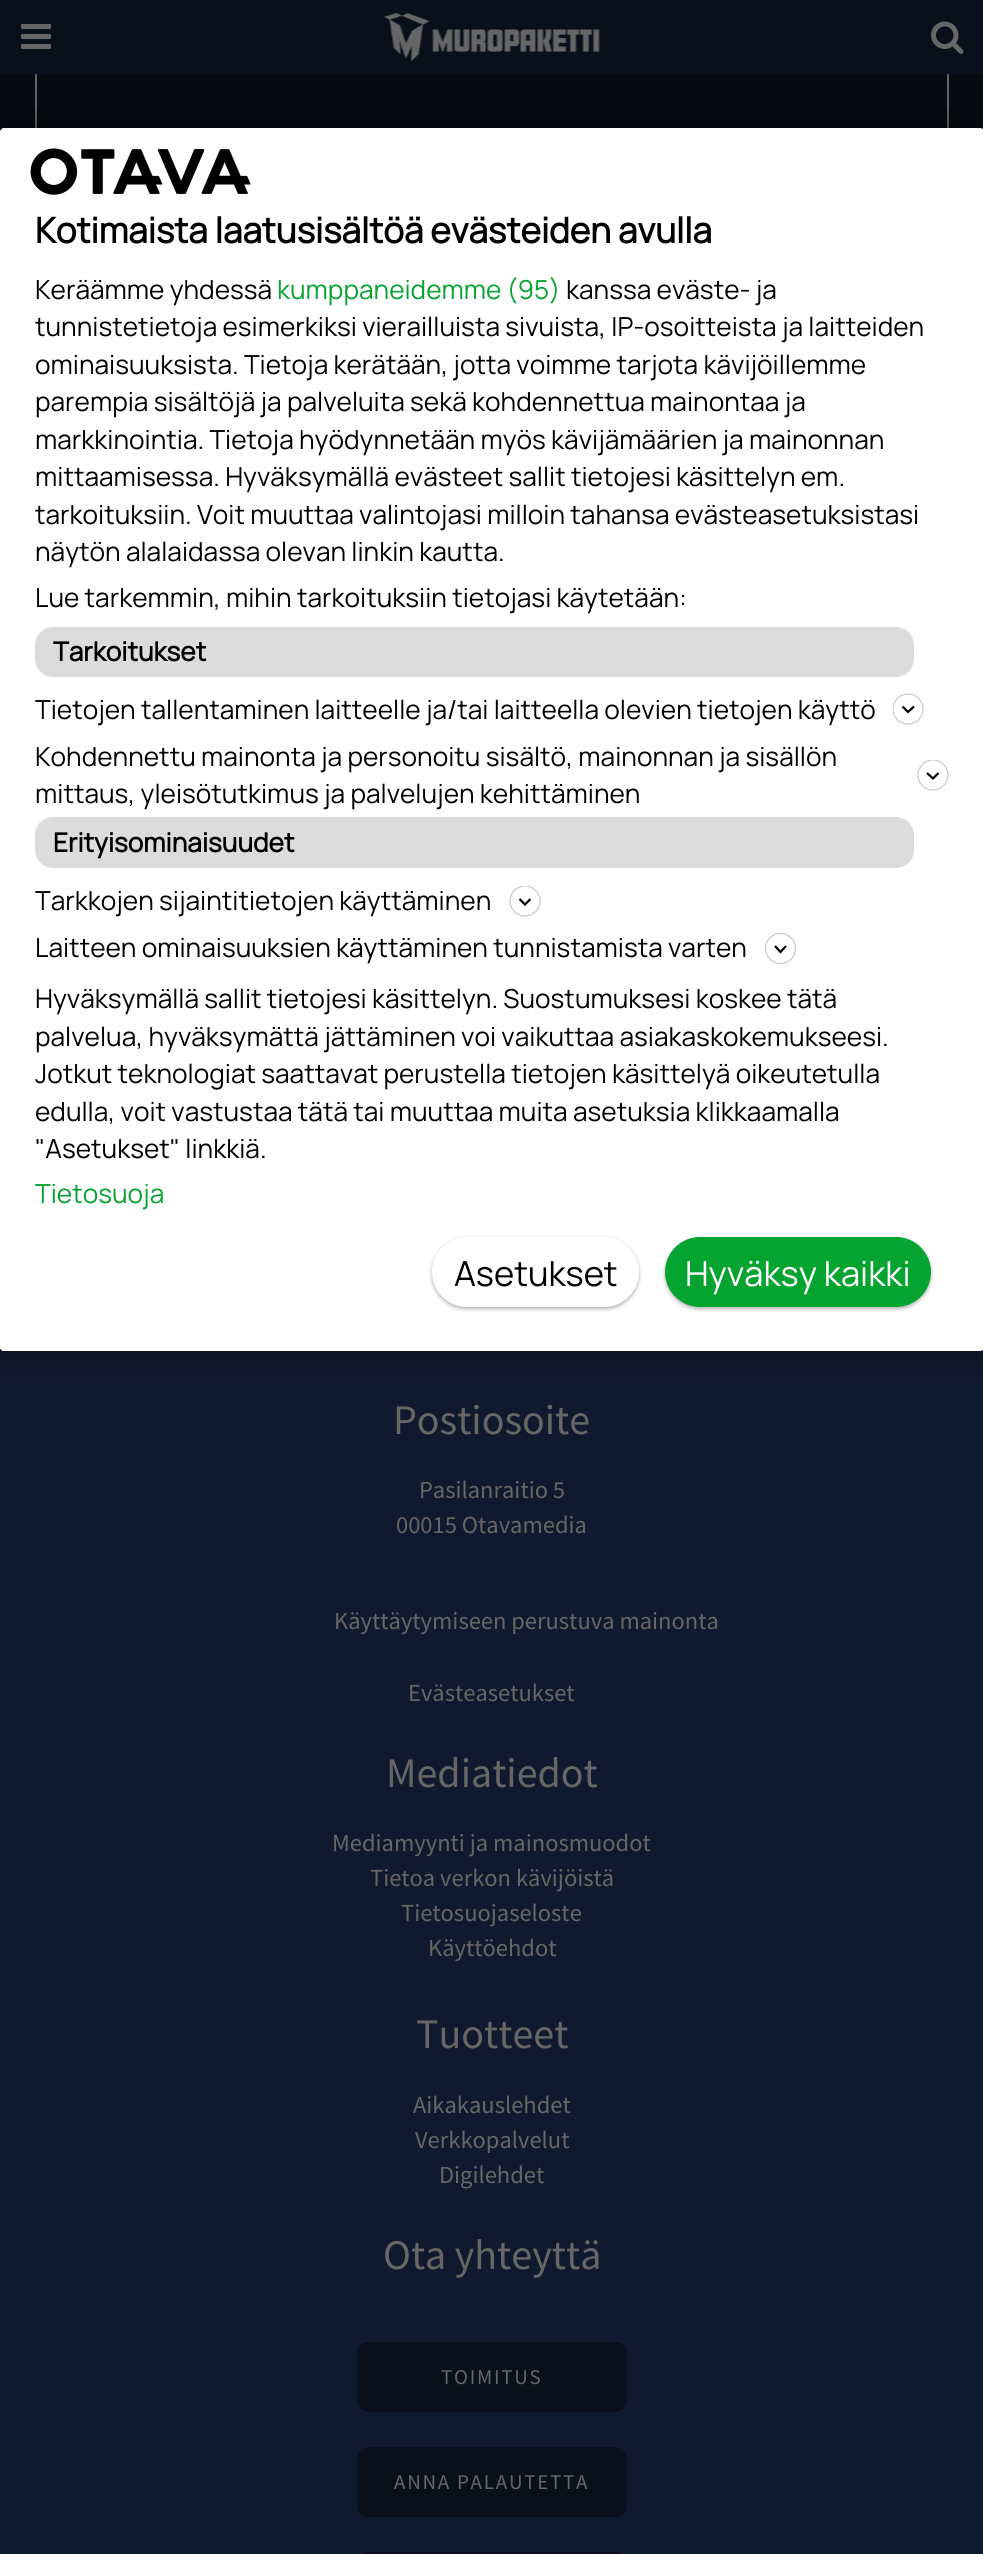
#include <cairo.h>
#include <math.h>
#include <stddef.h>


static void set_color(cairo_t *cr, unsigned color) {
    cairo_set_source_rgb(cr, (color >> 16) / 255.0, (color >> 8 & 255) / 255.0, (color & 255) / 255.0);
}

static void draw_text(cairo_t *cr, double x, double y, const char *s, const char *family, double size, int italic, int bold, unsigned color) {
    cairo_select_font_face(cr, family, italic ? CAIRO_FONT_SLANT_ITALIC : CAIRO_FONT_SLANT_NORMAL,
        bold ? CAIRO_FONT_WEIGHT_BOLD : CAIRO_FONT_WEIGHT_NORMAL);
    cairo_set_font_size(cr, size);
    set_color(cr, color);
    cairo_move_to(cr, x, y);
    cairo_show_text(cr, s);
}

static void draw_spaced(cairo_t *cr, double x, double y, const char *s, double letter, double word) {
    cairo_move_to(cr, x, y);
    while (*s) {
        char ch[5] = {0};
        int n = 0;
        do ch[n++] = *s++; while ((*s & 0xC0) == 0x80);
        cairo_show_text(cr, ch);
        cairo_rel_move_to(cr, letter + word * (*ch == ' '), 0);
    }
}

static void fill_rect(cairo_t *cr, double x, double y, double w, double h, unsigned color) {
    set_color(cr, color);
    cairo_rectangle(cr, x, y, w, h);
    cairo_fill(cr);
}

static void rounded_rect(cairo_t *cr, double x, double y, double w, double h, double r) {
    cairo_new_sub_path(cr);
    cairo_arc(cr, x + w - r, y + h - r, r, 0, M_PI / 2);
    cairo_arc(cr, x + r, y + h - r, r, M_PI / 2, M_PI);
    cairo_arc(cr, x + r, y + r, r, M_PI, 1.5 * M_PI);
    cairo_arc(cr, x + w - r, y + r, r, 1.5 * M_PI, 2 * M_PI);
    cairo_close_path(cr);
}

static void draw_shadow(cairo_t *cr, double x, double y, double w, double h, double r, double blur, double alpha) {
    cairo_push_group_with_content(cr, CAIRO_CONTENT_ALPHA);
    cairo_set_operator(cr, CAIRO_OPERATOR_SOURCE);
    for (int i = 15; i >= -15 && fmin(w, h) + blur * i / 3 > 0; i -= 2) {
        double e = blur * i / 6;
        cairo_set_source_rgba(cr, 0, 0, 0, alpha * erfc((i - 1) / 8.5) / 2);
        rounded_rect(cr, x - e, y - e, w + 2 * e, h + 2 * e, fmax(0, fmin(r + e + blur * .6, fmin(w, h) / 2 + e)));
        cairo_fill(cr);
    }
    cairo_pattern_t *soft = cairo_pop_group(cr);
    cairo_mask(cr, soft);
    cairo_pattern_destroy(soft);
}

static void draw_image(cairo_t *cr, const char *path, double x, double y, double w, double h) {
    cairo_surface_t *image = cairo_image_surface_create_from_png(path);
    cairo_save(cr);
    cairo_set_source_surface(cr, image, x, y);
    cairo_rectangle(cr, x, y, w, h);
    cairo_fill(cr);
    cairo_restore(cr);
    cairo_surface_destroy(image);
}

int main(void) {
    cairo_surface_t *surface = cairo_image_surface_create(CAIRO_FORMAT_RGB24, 983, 2554);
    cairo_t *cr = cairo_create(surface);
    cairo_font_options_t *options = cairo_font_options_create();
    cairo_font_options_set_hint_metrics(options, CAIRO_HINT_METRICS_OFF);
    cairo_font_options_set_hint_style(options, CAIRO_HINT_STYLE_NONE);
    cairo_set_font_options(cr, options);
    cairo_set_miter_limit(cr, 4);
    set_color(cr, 0x070B11);
    cairo_paint(cr);
    cairo_rectangle(cr, 36, -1, 912, 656);
    set_color(cr, 0x666666);
    cairo_stroke(cr);
    fill_rect(cr, 0, 1347, 983, 1207, 0x101A2E);
    set_color(cr, 0x000000);
    draw_shadow(cr, 0, 128, 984, 1223, 4, 17.5, 0.5);
    set_color(cr, 0xFFFFFF);
    rounded_rect(cr, 0, 128, 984, 1223, 4);
    cairo_fill(cr);
    draw_image(cr, "assets/img1.png", 30, 148, 221, 47);
    draw_text(cr, 35, 243, "Kotimaista laatusisältöä evästeiden avulla", "Manrope", 35, 0, 1, 0x000000);
    draw_text(cr, 35, 299, "Keräämme yhdessä", "Manrope ExtraLight", 26.25, 0, 0, 0x000000);
    draw_text(cr, 277, 299, "kumppaneidemme (95)", "Manrope ExtraLight", 26.25, 0, 0, 0x05A330);
    draw_text(cr, 566, 299, "kanssa eväste- ja", "Manrope ExtraLight", 26.25, 0, 0, 0x000000);
    draw_text(cr, 35, 336, "tunnistetietoja esimerkiksi vierailluista sivuista, IP-osoitteista ja laitteiden", "Manrope ExtraLight", 26.25, 0, 0, 0x000000);
    draw_text(cr, 35, 374, "ominaisuuksista. Tietoja kerätään, jotta voimme tarjota kävijöillemme", "Manrope ExtraLight", 26.25, 0, 0, 0x000000);
    draw_text(cr, 35, 411, "parempia sisältöjä ja palveluita sekä kohdennettua mainontaa ja", "Manrope ExtraLight", 26.25, 0, 0, 0x000000);
    draw_text(cr, 35, 449, "markkinointia. Tietoja hyödynnetään myös kävijämäärien ja mainonnan", "Manrope ExtraLight", 26.25, 0, 0, 0x000000);
    draw_text(cr, 35, 486, "mittaamisessa. Hyväksymällä evästeet sallit tietojesi käsittelyn em.", "Manrope ExtraLight", 26.25, 0, 0, 0x000000);
    draw_text(cr, 35, 524, "tarkoituksiin. Voit muuttaa valintojasi milloin tahansa evästeasetuksistasi", "Manrope ExtraLight", 26.25, 0, 0, 0x000000);
    draw_text(cr, 35, 561, "näytön alalaidassa olevan linkin kautta.", "Manrope ExtraLight", 26.25, 0, 0, 0x000000);
    draw_text(cr, 35, 607, "Lue tarkemmin, mihin tarkoituksiin tietojasi käytetään:", "Manrope ExtraLight", 26.25, 0, 0, 0x000000);
    set_color(cr, 0xDCDCDC);
    rounded_rect(cr, 35, 627, 879, 50, 18);
    cairo_fill(cr);
    draw_text(cr, 53, 661, "Tarkoitukset", "Manrope", 26.25, 0, 1, 0x000000);
    draw_text(cr, 35, 719, "Tietojen tallentaminen laitteelle ja/tai laitteella olevien tietojen käyttö", "Manrope ExtraLight", 26.25, 0, 0, 0x000000);
    cairo_new_path(cr);
    cairo_move_to(cr, 902.5, 706.5);
    cairo_line_to(cr, 908, 712);
    cairo_line_to(cr, 914, 706.5);
    cairo_set_line_width(cr, 2.2);
    cairo_stroke(cr);
    cairo_save(cr);
    cairo_rectangle(cr, 893, 693, 31, 32);
    cairo_clip(cr);
    cairo_arc(cr, 908, 709, 15, 0, 2 * M_PI);
    set_color(cr, 0xC4C4C4);
    cairo_set_line_width(cr, 1.1);
    cairo_stroke(cr);
    cairo_restore(cr);
    draw_text(cr, 35, 766, "Kohdennettu mainonta ja personoitu sisältö, mainonnan ja sisällön", "Manrope ExtraLight", 26.25, 0, 0, 0x000000);
    cairo_new_path(cr);
    cairo_move_to(cr, 927, 773);
    cairo_line_to(cr, 933, 778.5);
    cairo_line_to(cr, 938.5, 773);
    cairo_stroke(cr);
    cairo_save(cr);
    cairo_rectangle(cr, 917, 760, 32, 31);
    cairo_clip(cr);
    cairo_arc(cr, 933, 775, 15, 0, 2 * M_PI);
    set_color(cr, 0xC4C4C4);
    cairo_set_line_width(cr, 1.1);
    cairo_stroke(cr);
    cairo_restore(cr);
    draw_text(cr, 35, 803, "mittaus, yleisötutkimus ja palvelujen kehittäminen", "Manrope ExtraLight", 26.25, 0, 0, 0x000000);
    set_color(cr, 0xDCDCDC);
    rounded_rect(cr, 35, 817, 879, 51, 18);
    cairo_fill(cr);
    draw_text(cr, 53, 852, "Erityisominaisuudet", "Manrope", 26.25, 0, 1, 0x000000);
    draw_text(cr, 35, 910, "Tarkkojen sijaintitietojen käyttäminen", "Manrope ExtraLight", 26.25, 0, 0, 0x000000);
    cairo_new_path(cr);
    cairo_move_to(cr, 519.5, 899);
    cairo_line_to(cr, 525, 904.5);
    cairo_line_to(cr, 530.5, 899);
    cairo_stroke(cr);
    cairo_save(cr);
    cairo_rectangle(cr, 509, 886, 32, 31);
    cairo_clip(cr);
    cairo_arc(cr, 525, 901, 15, 0, 2 * M_PI);
    set_color(cr, 0xC4C4C4);
    cairo_set_line_width(cr, 1.1);
    cairo_stroke(cr);
    cairo_restore(cr);
    draw_text(cr, 35, 957, "Laitteen ominaisuuksien käyttäminen tunnistamista varten", "Manrope ExtraLight", 26.25, 0, 0, 0x000000);
    cairo_new_path(cr);
    cairo_move_to(cr, 775, 946);
    cairo_line_to(cr, 780.5, 952);
    cairo_line_to(cr, 786, 946);
    cairo_stroke(cr);
    cairo_arc(cr, 780.5, 948.5, 15, 0, 2 * M_PI);
    set_color(cr, 0xC4C4C4);
    cairo_set_line_width(cr, 1.1);
    cairo_stroke(cr);
    draw_text(cr, 35, 1008, "Hyväksymällä sallit tietojesi käsittelyn. Suostumuksesi koskee tätä", "Manrope ExtraLight", 26.25, 0, 0, 0x000000);
    draw_text(cr, 35, 1046, "palvelua, hyväksymättä jättäminen voi vaikuttaa asiakaskokemukseesi.", "Manrope ExtraLight", 26.25, 0, 0, 0x000000);
    draw_text(cr, 35, 1083, "Jotkut teknologiat saattavat perustella tietojen käsittelyä oikeutetulla", "Manrope ExtraLight", 26.25, 0, 0, 0x000000);
    draw_text(cr, 35, 1121, "edulla, voit vastustaa tätä tai muuttaa muita asetuksia klikkaamalla", "Manrope ExtraLight", 26.25, 0, 0, 0x000000);
    draw_text(cr, 35, 1158, "\"Asetukset\" linkkiä.", "Manrope ExtraLight", 26.25, 0, 0, 0x000000);
    draw_text(cr, 35, 1203, "Tietosuoja", "Manrope ExtraLight", 26.25, 0, 0, 0x05A330);
    set_color(cr, 0xFFFFFF);
    cairo_new_path(cr);
    cairo_move_to(cr, 0, 1211);
    cairo_line_to(cr, 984, 1211);
    cairo_line_to(cr, 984, 1347);
    cairo_curve_to(cr, 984, 1349, 982, 1351, 980, 1351);
    cairo_line_to(cr, 4, 1351);
    cairo_curve_to(cr, 2, 1351, 0, 1349, 0, 1347);
    cairo_close_path(cr);
    cairo_fill(cr);
    set_color(cr, 0x000000);
    draw_shadow(cr, 432, 1239, 207, 70, 35, 2, 0.3);
    set_color(cr, 0xFFFFFF);
    rounded_rect(cr, 432, 1237, 207, 70, 35);
    cairo_fill(cr);
    draw_text(cr, 454, 1286, "Asetukset", "Manrope ExtraLight", 34.5, 0, 0, 0x000000);
    set_color(cr, 0x000000);
    draw_shadow(cr, 665, 1239, 266, 70, 35, 2, 0.3);
    set_color(cr, 0x05A330);
    rounded_rect(cr, 665, 1237, 266, 70, 35);
    cairo_fill(cr);
    draw_text(cr, 685, 1286, "Hyväksy kaikki", "Manrope ExtraLight", 34.5, 0, 0, 0xFFFFFF);
    set_color(cr, 0x000000);
    draw_shadow(cr, 0, 2, 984, 73, 0, 4.5, 0.1);
    fill_rect(cr, 0, 0, 983, 74, 0x09101C);
    draw_image(cr, "assets/img2.png", 21, 24, 30, 25);
    draw_image(cr, "assets/img3.png", 383, 12, 217, 50);
    draw_image(cr, "assets/img4.png", 931, 21, 33, 33);
    draw_text(cr, 393, 1434, "Postiosoite", "Source Sans Pro", 42, 0, 0, 0x666666);
    draw_text(cr, 419, 1498, "Pasilanraitio 5", "Source Sans Pro", 24.5, 0, 0, 0x666666);
    draw_text(cr, 396, 1533, "00015 Otavamedia", "Source Sans Pro", 24.5, 0, 0, 0x666666);
    draw_text(cr, 334, 1629, "Käyttäytymiseen perustuva mainonta", "Source Sans Pro", 24.5, 0, 0, 0x666666);
    draw_text(cr, 408, 1701, "Evästeasetukset", "Source Sans Pro", 24.5, 0, 0, 0x666666);
    draw_text(cr, 386, 1787, "Mediatiedot", "Source Sans Pro", 42, 0, 0, 0x666666);
    draw_text(cr, 332, 1851, "Mediamyynti ja mainosmuodot", "Source Sans Pro", 24.5, 0, 0, 0x666666);
    draw_text(cr, 370, 1886, "Tietoa verkon kävijöistä", "Source Sans Pro", 24.5, 0, 0, 0x666666);
    draw_text(cr, 401, 1921, "Tietosuojaseloste", "Source Sans Pro", 24.5, 0, 0, 0x666666);
    draw_text(cr, 428, 1956, "Käyttöehdot", "Source Sans Pro", 24.5, 0, 0, 0x666666);
    draw_text(cr, 416, 2048, "Tuotteet", "Source Sans Pro", 42, 0, 0, 0x666666);
    draw_text(cr, 413, 2113, "Aikakauslehdet", "Source Sans Pro", 24.5, 0, 0, 0x666666);
    draw_text(cr, 415, 2148, "Verkkopalvelut", "Source Sans Pro", 24.5, 0, 0, 0x666666);
    draw_text(cr, 439, 2183, "Digilehdet", "Source Sans Pro", 24.5, 0, 0, 0x666666);
    draw_text(cr, 383, 2269, "Ota yhteyttä", "Source Sans Pro", 42, 0, 0, 0x666666);
    set_color(cr, 0x09101C);
    rounded_rect(cr, 357, 2342, 270, 70, 11);
    cairo_fill(cr);
    cairo_set_font_size(cr, 21);
    set_color(cr, 0x666666);
    draw_spaced(cr, 441, 2384, "TOIMITUS", 1.75, 0);
    set_color(cr, 0x09101C);
    rounded_rect(cr, 357, 2447, 270, 70, 11);
    cairo_fill(cr);
    set_color(cr, 0x666666);
    draw_spaced(cr, 394, 2489, "ANNA PALAUTETTA", 1.75, 0);
    set_color(cr, 0x09101C);
    rounded_rect(cr, 357, 2552, 270, 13, 11);
    cairo_fill(cr);
    cairo_surface_write_to_png(surface, "output.png");
    cairo_font_options_destroy(options);
    cairo_destroy(cr);
    cairo_surface_destroy(surface);
    return 0;
}
